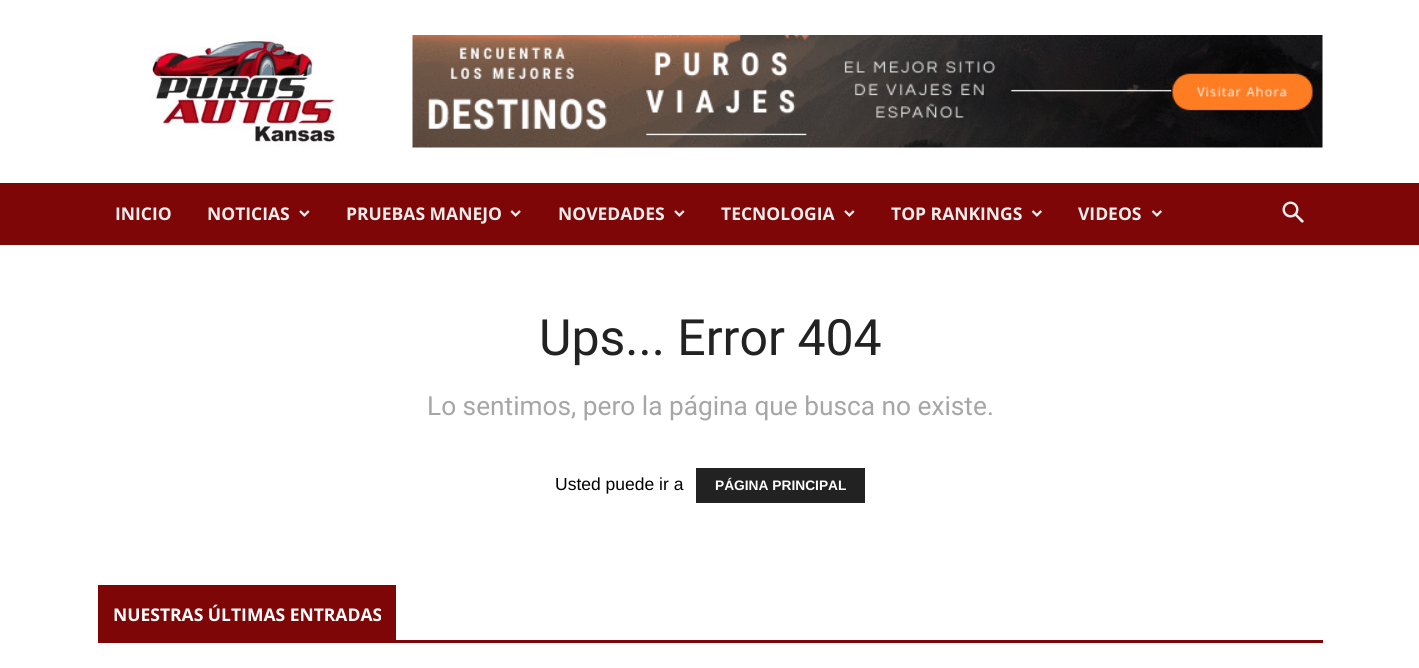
#include <cairo.h>
#include <math.h>
#include <stddef.h>


static void set_color(cairo_t *cr, unsigned color) {
    cairo_set_source_rgb(cr, (color >> 16) / 255.0, (color >> 8 & 255) / 255.0, (color & 255) / 255.0);
}

static void draw_text(cairo_t *cr, double x, double y, const char *s, const char *family, double size, int italic, int bold, unsigned color) {
    cairo_select_font_face(cr, family, italic ? CAIRO_FONT_SLANT_ITALIC : CAIRO_FONT_SLANT_NORMAL,
        bold ? CAIRO_FONT_WEIGHT_BOLD : CAIRO_FONT_WEIGHT_NORMAL);
    cairo_set_font_size(cr, size);
    set_color(cr, color);
    cairo_move_to(cr, x, y);
    cairo_show_text(cr, s);
}

static void fill_rect(cairo_t *cr, double x, double y, double w, double h, unsigned color) {
    set_color(cr, color);
    cairo_rectangle(cr, x, y, w, h);
    cairo_fill(cr);
}

static void draw_image(cairo_t *cr, const char *path, double x, double y, double w, double h) {
    cairo_surface_t *image = cairo_image_surface_create_from_png(path);
    cairo_save(cr);
    cairo_set_source_surface(cr, image, x, y);
    cairo_rectangle(cr, x, y, w, h);
    cairo_fill(cr);
    cairo_restore(cr);
    cairo_surface_destroy(image);
}

int main(void) {
    cairo_surface_t *surface = cairo_image_surface_create(CAIRO_FORMAT_RGB24, 1419, 668);
    cairo_t *cr = cairo_create(surface);
    cairo_font_options_t *options = cairo_font_options_create();
    cairo_font_options_set_hint_metrics(options, CAIRO_HINT_METRICS_OFF);
    cairo_font_options_set_hint_style(options, CAIRO_HINT_STYLE_NONE);
    cairo_set_font_options(cr, options);
    cairo_set_miter_limit(cr, 4);
    set_color(cr, 0xFFFFFF);
    cairo_paint(cr);
    draw_image(cr, "assets/img1.png", 151, 35, 188, 112);
    draw_image(cr, "assets/img2.png", 412, 35, 911, 113);
    fill_rect(cr, 0, 183, 1419, 62, 0x7F0606);
    draw_text(cr, 115, 220, "INICIO", "Open Sans", 17.5, 0, 1, 0xEDEDED);
    draw_text(cr, 207, 220, "NOTICIAS", "Open Sans", 17.5, 0, 1, 0xEDEDED);
    draw_image(cr, "assets/img3.png", 299, 210, 11, 7);
    draw_text(cr, 346, 220, "PRUEBAS MANEJO", "Open Sans", 17.5, 0, 1, 0xEDEDED);
    draw_image(cr, "assets/img4.png", 510, 210, 11, 7);
    draw_text(cr, 558, 220, "NOVEDADES", "Open Sans", 17.5, 0, 1, 0xEDEDED);
    draw_image(cr, "assets/img3.png", 674, 210, 11, 7);
    draw_text(cr, 721, 220, "TECNOLOGIA", "Open Sans", 17.5, 0, 1, 0xEDEDED);
    draw_image(cr, "assets/img3.png", 844, 210, 11, 7);
    draw_text(cr, 891, 220, "TOP RANKINGS", "Open Sans", 17.5, 0, 1, 0xEDEDED);
    draw_image(cr, "assets/img5.png", 1031, 210, 11, 7);
    draw_text(cr, 1078, 220, "VIDEOS", "Open Sans", 17.5, 0, 1, 0xEDEDED);
    draw_image(cr, "assets/img5.png", 1151, 210, 11, 7);
    draw_image(cr, "assets/img6.png", 1282, 201, 22, 22);
    draw_text(cr, 539, 355, "Ups... Error 404", "Roboto", 50, 0, 0, 0x222222);
    draw_text(cr, 427, 415, "Lo sentimos, pero la página que busca no existe.", "Roboto", 26.25, 0, 0, 0xA6A6A6);
    draw_text(cr, 555, 490, "Usted puede ir a", "Liberation Sans", 17.5, 0, 0, 0x000000);
    fill_rect(cr, 696, 468, 169, 35, 0x222222);
    draw_text(cr, 715, 490, "PÁGINA PRINCIPAL", "Liberation Sans", 13.75, 0, 1, 0xFFFFFF);
    fill_rect(cr, 98, 640, 1225, 3, 0x7F0606);
    fill_rect(cr, 98, 585, 298, 55, 0x7F0606);
    draw_text(cr, 113, 621, "NUESTRAS ÚLTIMAS ENTRADAS", "Open Sans", 17.5, 0, 1, 0xFFFFFF);
    cairo_surface_write_to_png(surface, "output.png");
    cairo_font_options_destroy(options);
    cairo_destroy(cr);
    cairo_surface_destroy(surface);
    return 0;
}
